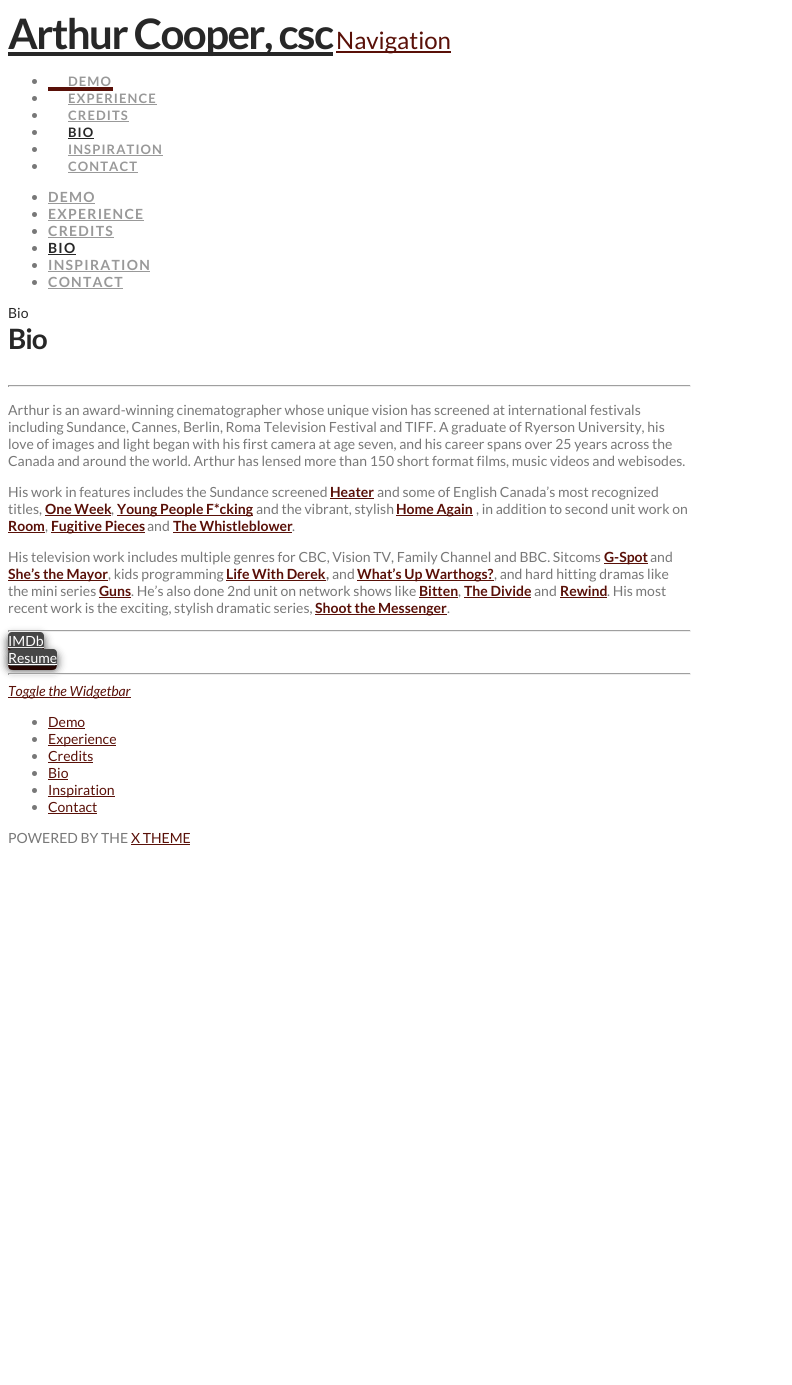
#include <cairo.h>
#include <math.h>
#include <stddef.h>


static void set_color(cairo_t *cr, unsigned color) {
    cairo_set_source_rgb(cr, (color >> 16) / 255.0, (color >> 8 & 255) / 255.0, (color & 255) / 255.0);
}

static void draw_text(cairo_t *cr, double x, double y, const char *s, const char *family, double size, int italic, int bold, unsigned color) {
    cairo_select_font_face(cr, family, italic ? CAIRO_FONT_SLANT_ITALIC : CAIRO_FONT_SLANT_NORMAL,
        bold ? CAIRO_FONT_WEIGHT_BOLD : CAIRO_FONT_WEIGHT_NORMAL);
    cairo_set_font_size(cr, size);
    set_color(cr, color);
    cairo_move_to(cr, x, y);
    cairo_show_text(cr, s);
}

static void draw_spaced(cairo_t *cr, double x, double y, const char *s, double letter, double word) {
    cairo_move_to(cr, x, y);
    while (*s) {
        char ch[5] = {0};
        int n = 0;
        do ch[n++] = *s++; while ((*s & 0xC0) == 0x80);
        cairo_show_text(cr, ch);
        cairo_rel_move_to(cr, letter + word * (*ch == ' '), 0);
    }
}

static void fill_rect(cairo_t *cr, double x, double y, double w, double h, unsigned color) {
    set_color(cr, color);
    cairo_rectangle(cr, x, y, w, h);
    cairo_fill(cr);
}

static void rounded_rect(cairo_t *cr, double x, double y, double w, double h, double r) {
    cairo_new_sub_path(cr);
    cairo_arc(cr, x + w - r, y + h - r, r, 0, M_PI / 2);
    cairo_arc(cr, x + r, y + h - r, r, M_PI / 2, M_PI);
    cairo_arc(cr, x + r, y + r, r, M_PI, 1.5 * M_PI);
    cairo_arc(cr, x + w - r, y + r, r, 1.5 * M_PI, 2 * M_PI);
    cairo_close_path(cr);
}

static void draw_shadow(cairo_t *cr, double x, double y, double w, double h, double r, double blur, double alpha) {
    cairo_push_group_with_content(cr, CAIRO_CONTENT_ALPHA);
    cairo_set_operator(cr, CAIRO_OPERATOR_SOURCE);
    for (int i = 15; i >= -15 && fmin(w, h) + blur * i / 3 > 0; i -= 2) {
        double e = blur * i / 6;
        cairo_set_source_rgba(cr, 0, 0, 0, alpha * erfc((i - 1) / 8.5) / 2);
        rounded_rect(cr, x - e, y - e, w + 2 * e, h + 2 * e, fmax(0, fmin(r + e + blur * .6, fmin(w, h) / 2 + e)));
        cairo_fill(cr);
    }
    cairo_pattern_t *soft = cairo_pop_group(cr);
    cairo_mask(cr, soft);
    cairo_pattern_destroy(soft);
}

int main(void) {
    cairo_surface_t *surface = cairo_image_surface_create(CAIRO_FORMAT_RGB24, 792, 1385);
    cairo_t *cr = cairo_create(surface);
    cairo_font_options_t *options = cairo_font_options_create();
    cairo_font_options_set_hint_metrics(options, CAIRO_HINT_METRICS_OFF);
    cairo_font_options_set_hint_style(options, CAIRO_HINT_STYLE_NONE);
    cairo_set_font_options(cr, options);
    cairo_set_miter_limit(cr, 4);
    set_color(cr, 0xFFFFFF);
    cairo_paint(cr);
    fill_rect(cr, 8, 52, 325, 4, 0x272727);
    cairo_select_font_face(cr, "Lato", CAIRO_FONT_SLANT_NORMAL, CAIRO_FONT_WEIGHT_BOLD);
    cairo_set_font_size(cr, 42);
    draw_spaced(cr, 8, 49, "Arthur Cooper, csc", -1.5, 0);
    fill_rect(cr, 336, 51, 115, 2, 0x591008);
    draw_text(cr, 336, 49, "Navigation", "Lato", 24, 0, 0, 0x591008);
    set_color(cr, 0x787878);
    cairo_new_path(cr);
    cairo_arc(cr, 34.5, 81.5, 2.5, 0, 2 * M_PI);
    cairo_fill(cr);
    cairo_select_font_face(cr, "Lato", CAIRO_FONT_SLANT_NORMAL, CAIRO_FONT_WEIGHT_BOLD);
    cairo_set_font_size(cr, 13);
    set_color(cr, 0x999999);
    draw_spaced(cr, 68, 86, "DEMO", 1.1, 0);
    set_color(cr, 0x787878);
    cairo_new_path(cr);
    cairo_arc(cr, 34.5, 98.5, 2.5, 0, 2 * M_PI);
    cairo_fill(cr);
    set_color(cr, 0x999999);
    draw_spaced(cr, 68, 103, "EXPERIENCE", 1.1, 0);
    fill_rect(cr, 68, 104, 89, 1, 0x999999);
    set_color(cr, 0x787878);
    cairo_new_path(cr);
    cairo_arc(cr, 34.5, 115.5, 2.5, 0, 2 * M_PI);
    cairo_fill(cr);
    set_color(cr, 0x999999);
    draw_spaced(cr, 68, 120, "CREDITS", 1.1, 0);
    fill_rect(cr, 68, 121, 61, 1, 0x999999);
    set_color(cr, 0x787878);
    cairo_new_path(cr);
    cairo_arc(cr, 34.5, 132.5, 2.5, 0, 2 * M_PI);
    cairo_fill(cr);
    set_color(cr, 0x272727);
    draw_spaced(cr, 68, 137, "BIO", 1.1, 0);
    fill_rect(cr, 48, 87, 65, 4, 0x591008);
    fill_rect(cr, 68, 138, 26, 1, 0x272727);
    set_color(cr, 0x787878);
    cairo_new_path(cr);
    cairo_arc(cr, 34.5, 149.5, 2.5, 0, 2 * M_PI);
    cairo_fill(cr);
    set_color(cr, 0x999999);
    draw_spaced(cr, 68, 154, "INSPIRATION", 1.1, 0);
    fill_rect(cr, 68, 155, 95, 1, 0x999999);
    set_color(cr, 0x787878);
    cairo_new_path(cr);
    cairo_arc(cr, 34.5, 166.5, 2.5, 0, 2 * M_PI);
    cairo_fill(cr);
    set_color(cr, 0x999999);
    draw_spaced(cr, 68, 171, "CONTACT", 1.1, 0);
    fill_rect(cr, 68, 172, 70, 1, 0x999999);
    set_color(cr, 0x787878);
    cairo_new_path(cr);
    cairo_arc(cr, 34.5, 197.5, 2.5, 0, 2 * M_PI);
    cairo_fill(cr);
    cairo_set_font_size(cr, 14);
    set_color(cr, 0x999999);
    draw_spaced(cr, 48, 202, "DEMO", 1.25, 0);
    fill_rect(cr, 48, 203, 47, 1, 0x999999);
    set_color(cr, 0x787878);
    cairo_new_path(cr);
    cairo_arc(cr, 34.5, 214.5, 2.5, 0, 2 * M_PI);
    cairo_fill(cr);
    set_color(cr, 0x999999);
    draw_spaced(cr, 48, 219, "EXPERIENCE", 1.25, 0);
    fill_rect(cr, 48, 220, 96, 1, 0x999999);
    set_color(cr, 0x787878);
    cairo_new_path(cr);
    cairo_arc(cr, 34.5, 231.5, 2.5, 0, 2 * M_PI);
    cairo_fill(cr);
    set_color(cr, 0x999999);
    draw_spaced(cr, 48, 236, "CREDITS", 1.25, 0);
    fill_rect(cr, 48, 237, 66, 1, 0x999999);
    set_color(cr, 0x787878);
    cairo_new_path(cr);
    cairo_arc(cr, 34.5, 248.5, 2.5, 0, 2 * M_PI);
    cairo_fill(cr);
    set_color(cr, 0x272727);
    draw_spaced(cr, 48, 253, "BIO", 1.25, 0);
    fill_rect(cr, 48, 254, 28, 1, 0x272727);
    set_color(cr, 0x787878);
    cairo_new_path(cr);
    cairo_arc(cr, 34.5, 265.5, 2.5, 0, 2 * M_PI);
    cairo_fill(cr);
    set_color(cr, 0x999999);
    draw_spaced(cr, 48, 270, "INSPIRATION", 1.25, 0);
    fill_rect(cr, 48, 271, 102, 1, 0x999999);
    set_color(cr, 0x787878);
    cairo_new_path(cr);
    cairo_arc(cr, 34.5, 282.5, 2.5, 0, 2 * M_PI);
    cairo_fill(cr);
    set_color(cr, 0x999999);
    draw_spaced(cr, 48, 287, "CONTACT", 1.25, 0);
    fill_rect(cr, 48, 288, 75, 1, 0x999999);
    draw_text(cr, 8, 318, "Bio", "Lato", 14, 0, 0, 0x272727);
    cairo_select_font_face(cr, "Lato", CAIRO_FONT_SLANT_NORMAL, CAIRO_FONT_WEIGHT_BOLD);
    cairo_set_font_size(cr, 28);
    draw_spaced(cr, 8, 349, "Bio", -1, 0);
    fill_rect(cr, 8, 385, 683, 1, 0x9F9F9F);
    fill_rect(cr, 690, 385, 1, 2, 0xEEEEEE);
    fill_rect(cr, 8, 386, 683, 1, 0xEEEEEE);
    fill_rect(cr, 8, 385, 1, 2, 0x9F9F9F);
    draw_text(cr, 8, 415, "Arthur is an award-winning cinematographer whose unique vision has screened at international festivals", "Lato", 14, 0, 0, 0x787878);
    draw_text(cr, 8, 432, "including Sundance, Cannes, Berlin, Roma Television Festival and TIFF. A graduate of Ryerson University, his", "Lato", 14, 0, 0, 0x787878);
    draw_text(cr, 8, 449, "love of images and light began with his first camera at age seven, and his career spans over 25 years across the", "Lato", 14, 0, 0, 0x787878);
    draw_text(cr, 8, 466, "Canada and around the world. Arthur has lensed more than 150 short format films, music videos and webisodes.", "Lato", 14, 0, 0, 0x787878);
    draw_text(cr, 8, 497, "His work in features includes the Sundance screened", "Lato", 14, 0, 0, 0x787878);
    draw_text(cr, 330, 497, "Heater", "Lato", 14, 0, 1, 0x591008);
    fill_rect(cr, 330, 498, 44, 1, 0x591008);
    draw_text(cr, 377, 497, "and some of English Canada’s most recognized", "Lato", 14, 0, 0, 0x787878);
    draw_text(cr, 8, 514, "titles,", "Lato", 14, 0, 0, 0x787878);
    draw_text(cr, 45, 514, "One Week", "Lato", 14, 0, 1, 0x591008);
    fill_rect(cr, 45, 515, 66, 1, 0x591008);
    draw_text(cr, 111, 514, ",", "Lato", 14, 0, 0, 0x787878);
    fill_rect(cr, 117, 515, 136, 1, 0x591008);
    draw_text(cr, 117, 514, "Young People F*cking", "Lato", 14, 0, 1, 0x591008);
    draw_text(cr, 256, 514, "and the vibrant, stylish", "Lato", 14, 0, 0, 0x787878);
    fill_rect(cr, 396, 515, 77, 1, 0x591008);
    draw_text(cr, 396, 514, "Home Again", "Lato", 14, 0, 1, 0x591008);
    draw_text(cr, 476, 514, ", in addition to second unit work on", "Lato", 14, 0, 0, 0x787878);
    draw_text(cr, 8, 531, "Room", "Lato", 14, 0, 1, 0x591008);
    fill_rect(cr, 8, 532, 37, 1, 0x591008);
    draw_text(cr, 45, 531, ",", "Lato", 14, 0, 0, 0x787878);
    fill_rect(cr, 51, 532, 94, 1, 0x591008);
    draw_text(cr, 51, 531, "Fugitive Pieces", "Lato", 14, 0, 1, 0x591008);
    draw_text(cr, 147, 531, "and", "Lato", 14, 0, 0, 0x787878);
    draw_text(cr, 173, 531, "The Whistleblower", "Lato", 14, 0, 1, 0x591008);
    fill_rect(cr, 173, 532, 119, 1, 0x591008);
    draw_text(cr, 292, 531, ".", "Lato", 14, 0, 0, 0x787878);
    draw_text(cr, 8, 562, "His television work includes multiple genres for CBC, Vision TV, Family Channel and BBC. Sitcoms", "Lato", 14, 0, 0, 0x787878);
    fill_rect(cr, 604, 563, 44, 1, 0x591008);
    draw_text(cr, 604, 562, "G-Spot", "Lato", 14, 0, 1, 0x591008);
    draw_text(cr, 650, 562, "and", "Lato", 14, 0, 0, 0x787878);
    fill_rect(cr, 8, 580, 100, 1, 0x591008);
    draw_text(cr, 8, 579, "She’s the Mayor", "Lato", 14, 0, 1, 0x591008);
    draw_text(cr, 108, 579, ", kids programming", "Lato", 14, 0, 0, 0x787878);
    draw_text(cr, 226, 579, "Life With Derek", "Lato", 14, 0, 1, 0x591008);
    draw_text(cr, 326, 579, ",", "Lato", 14, 0, 1, 0x787878);
    fill_rect(cr, 226, 580, 100, 1, 0x591008);
    draw_text(cr, 332, 579, "and", "Lato", 14, 0, 0, 0x787878);
    fill_rect(cr, 357, 580, 137, 1, 0x591008);
    draw_text(cr, 357, 579, "What’s Up Warthogs?", "Lato", 14, 0, 1, 0x591008);
    draw_text(cr, 494, 579, ", and hard hitting dramas like", "Lato", 14, 0, 0, 0x787878);
    draw_text(cr, 8, 596, "the mini series", "Lato", 14, 0, 0, 0x787878);
    draw_text(cr, 99, 596, "Guns", "Lato", 14, 0, 1, 0x591008);
    fill_rect(cr, 99, 597, 32, 1, 0x591008);
    draw_text(cr, 131, 596, ". He’s also done 2nd unit on network shows like", "Lato", 14, 0, 0, 0x787878);
    draw_text(cr, 419, 596, "Bitten", "Lato", 14, 0, 1, 0x591008);
    fill_rect(cr, 419, 597, 39, 1, 0x591008);
    draw_text(cr, 458, 596, ",", "Lato", 14, 0, 0, 0x787878);
    draw_text(cr, 464, 596, "The Divide", "Lato", 14, 0, 1, 0x591008);
    fill_rect(cr, 464, 597, 67, 1, 0x591008);
    draw_text(cr, 534, 596, "and", "Lato", 14, 0, 0, 0x787878);
    draw_text(cr, 560, 596, "Rewind", "Lato", 14, 0, 1, 0x591008);
    fill_rect(cr, 560, 597, 47, 1, 0x591008);
    draw_text(cr, 607, 596, ". His most", "Lato", 14, 0, 0, 0x787878);
    draw_text(cr, 8, 613, "recent work is the exciting, stylish dramatic series,", "Lato", 14, 0, 0, 0x787878);
    fill_rect(cr, 315, 614, 132, 1, 0x591008);
    draw_text(cr, 315, 613, "Shoot the Messenger", "Lato", 14, 0, 1, 0x591008);
    draw_text(cr, 447, 613, ".", "Lato", 14, 0, 0, 0x787878);
    set_color(cr, 0x000000);
    draw_shadow(cr, 8, 636, 36, 17, 4, 4.5, 0.75);
    fill_rect(cr, 8, 630, 683, 1, 0x9F9F9F);
    fill_rect(cr, 690, 630, 1, 2, 0xEEEEEE);
    fill_rect(cr, 8, 631, 683, 1, 0xEEEEEE);
    fill_rect(cr, 8, 630, 1, 2, 0x9F9F9F);
    set_color(cr, 0x260703);
    cairo_new_path(cr);
    cairo_move_to(cr, 8, 645.5);
    cairo_curve_to(cr, 8, 653, 9, 653, 16.5, 653);
    cairo_line_to(cr, 35.5, 653);
    cairo_curve_to(cr, 43, 653, 44, 653, 44, 645.5);
    cairo_curve_to(cr, 44, 647.5, 42.5, 649, 40.5, 649);
    cairo_line_to(cr, 11.5, 649);
    cairo_curve_to(cr, 9.5, 649, 8, 647.5, 8, 645.5);
    cairo_close_path(cr);
    cairo_fill(cr);
    set_color(cr, 0x474747);
    rounded_rect(cr, 8, 632, 36, 17, 4);
    cairo_fill(cr);
    draw_text(cr, 8, 646, "IMDb", "Lato", 14, 0, 0, 0xFFFFFF);
    fill_rect(cr, 8, 647, 36, 1, 0xFFFFFF);
    set_color(cr, 0x000000);
    draw_shadow(cr, 8, 653, 49, 17, 4, 4.5, 0.75);
    set_color(cr, 0x260703);
    cairo_new_path(cr);
    cairo_move_to(cr, 8, 662);
    cairo_curve_to(cr, 8, 671, 10, 670, 19, 670);
    cairo_line_to(cr, 46, 670);
    cairo_curve_to(cr, 55, 670, 57, 671, 57, 662);
    cairo_curve_to(cr, 57, 664, 55, 666, 54, 666);
    cairo_line_to(cr, 12, 666);
    cairo_curve_to(cr, 10, 666, 8, 664, 8, 662);
    cairo_close_path(cr);
    cairo_fill(cr);
    set_color(cr, 0x474747);
    rounded_rect(cr, 8, 649, 49, 17, 4);
    cairo_fill(cr);
    draw_text(cr, 8, 663, "Resume", "Lato", 14, 0, 0, 0xFFFFFF);
    fill_rect(cr, 8, 664, 49, 1, 0xFFFFFF);
    fill_rect(cr, 8, 673, 683, 1, 0x9F9F9F);
    fill_rect(cr, 690, 673, 1, 2, 0xEEEEEE);
    fill_rect(cr, 8, 674, 683, 1, 0xEEEEEE);
    fill_rect(cr, 8, 673, 1, 2, 0x9F9F9F);
    fill_rect(cr, 8, 697, 123, 1, 0x591008);
    draw_text(cr, 8, 696, "Toggle the Widgetbar", "Lato", 14, 1, 0, 0x591008);
    set_color(cr, 0x787878);
    cairo_new_path(cr);
    cairo_arc(cr, 34.5, 722.5, 2.5, 0, 2 * M_PI);
    cairo_fill(cr);
    draw_text(cr, 48, 727, "Demo", "Lato", 14, 0, 0, 0x591008);
    fill_rect(cr, 48, 728, 37, 1, 0x591008);
    set_color(cr, 0x787878);
    cairo_new_path(cr);
    cairo_arc(cr, 34.5, 739.5, 2.5, 0, 2 * M_PI);
    cairo_fill(cr);
    fill_rect(cr, 48, 745, 68, 1, 0x591008);
    draw_text(cr, 48, 744, "Experience", "Lato", 14, 0, 0, 0x591008);
    set_color(cr, 0x787878);
    cairo_new_path(cr);
    cairo_arc(cr, 34.5, 756.5, 2.5, 0, 2 * M_PI);
    cairo_fill(cr);
    draw_text(cr, 48, 761, "Credits", "Lato", 14, 0, 0, 0x591008);
    fill_rect(cr, 48, 762, 45, 1, 0x591008);
    set_color(cr, 0x787878);
    cairo_new_path(cr);
    cairo_arc(cr, 34.5, 773.5, 2.5, 0, 2 * M_PI);
    cairo_fill(cr);
    draw_text(cr, 48, 778, "Bio", "Lato", 14, 0, 0, 0x591008);
    fill_rect(cr, 48, 779, 20, 1, 0x591008);
    set_color(cr, 0x787878);
    cairo_new_path(cr);
    cairo_arc(cr, 34.5, 790.5, 2.5, 0, 2 * M_PI);
    cairo_fill(cr);
    fill_rect(cr, 48, 796, 67, 1, 0x591008);
    draw_text(cr, 48, 795, "Inspiration", "Lato", 14, 0, 0, 0x591008);
    set_color(cr, 0x787878);
    cairo_new_path(cr);
    cairo_arc(cr, 34.5, 807.5, 2.5, 0, 2 * M_PI);
    cairo_fill(cr);
    draw_text(cr, 48, 812, "Contact", "Lato", 14, 0, 0, 0x591008);
    fill_rect(cr, 48, 813, 49, 1, 0x591008);
    draw_text(cr, 8, 843, "POWERED BY THE", "Lato", 14, 0, 0, 0x787878);
    draw_text(cr, 131, 843, "X THEME", "Lato", 14, 0, 0, 0x591008);
    fill_rect(cr, 131, 844, 59, 1, 0x591008);
    cairo_surface_write_to_png(surface, "output.png");
    cairo_font_options_destroy(options);
    cairo_destroy(cr);
    cairo_surface_destroy(surface);
    return 0;
}
